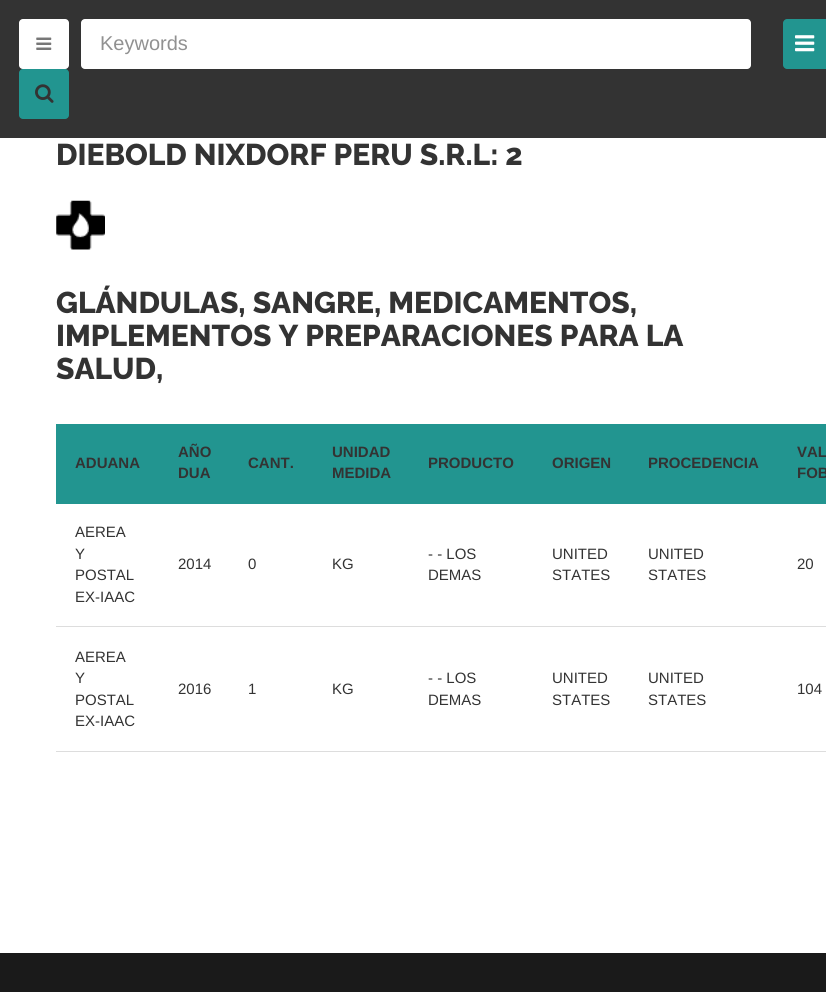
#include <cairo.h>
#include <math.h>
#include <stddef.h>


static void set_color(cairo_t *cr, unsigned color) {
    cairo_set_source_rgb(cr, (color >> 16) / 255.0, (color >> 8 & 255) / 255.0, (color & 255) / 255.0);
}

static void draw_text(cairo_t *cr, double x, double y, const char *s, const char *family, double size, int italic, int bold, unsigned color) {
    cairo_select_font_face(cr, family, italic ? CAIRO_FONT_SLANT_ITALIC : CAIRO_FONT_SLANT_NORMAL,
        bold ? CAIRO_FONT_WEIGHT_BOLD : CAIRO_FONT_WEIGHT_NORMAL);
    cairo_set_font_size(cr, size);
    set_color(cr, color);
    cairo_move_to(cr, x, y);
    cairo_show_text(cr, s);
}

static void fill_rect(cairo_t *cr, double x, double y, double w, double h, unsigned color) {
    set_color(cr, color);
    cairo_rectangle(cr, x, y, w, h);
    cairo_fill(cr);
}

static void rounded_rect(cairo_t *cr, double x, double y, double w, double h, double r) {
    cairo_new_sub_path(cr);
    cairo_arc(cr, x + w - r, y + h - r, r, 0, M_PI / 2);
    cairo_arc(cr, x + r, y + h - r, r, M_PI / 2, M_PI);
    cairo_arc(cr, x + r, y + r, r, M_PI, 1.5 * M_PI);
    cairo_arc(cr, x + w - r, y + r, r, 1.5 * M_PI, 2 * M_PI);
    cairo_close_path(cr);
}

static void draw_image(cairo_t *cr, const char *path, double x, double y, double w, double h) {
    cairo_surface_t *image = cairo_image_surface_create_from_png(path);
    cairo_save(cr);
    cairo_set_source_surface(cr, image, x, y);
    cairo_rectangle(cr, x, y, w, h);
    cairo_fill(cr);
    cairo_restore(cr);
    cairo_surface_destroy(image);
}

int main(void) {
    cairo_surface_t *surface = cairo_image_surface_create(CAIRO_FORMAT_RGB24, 826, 992);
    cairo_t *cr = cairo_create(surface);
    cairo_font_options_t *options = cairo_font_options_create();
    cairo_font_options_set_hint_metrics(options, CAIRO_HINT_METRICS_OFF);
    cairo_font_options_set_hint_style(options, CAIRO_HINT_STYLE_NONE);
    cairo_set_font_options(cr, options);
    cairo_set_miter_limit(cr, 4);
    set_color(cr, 0xFFFFFF);
    cairo_paint(cr);
    fill_rect(cr, 0, 0, 826, 138, 0x333333);
    set_color(cr, 0xFFFFFF);
    rounded_rect(cr, 19, 19, 50, 50, 4);
    cairo_fill(cr);
    draw_image(cr, "assets/img1.png", 36, 37, 16, 13);
    rounded_rect(cr, 81, 19, 670, 50, 4);
    cairo_fill(cr);
    draw_text(cr, 100, 50, "Keywords", "Liberation Sans", 20, 0, 0, 0x919191);
    set_color(cr, 0x229590);
    rounded_rect(cr, 19, 69, 50, 50, 4);
    cairo_fill(cr);
    draw_image(cr, "assets/img2.png", 35, 84, 19, 19);
    cairo_new_path(cr);
    cairo_move_to(cr, 787, 19);
    cairo_line_to(cr, 826, 19);
    cairo_line_to(cr, 826, 69);
    cairo_line_to(cr, 787, 69);
    cairo_curve_to(cr, 785, 69, 783, 67, 783, 65);
    cairo_line_to(cr, 783, 23);
    cairo_curve_to(cr, 783, 21, 785, 19, 787, 19);
    cairo_close_path(cr);
    cairo_fill(cr);
    draw_image(cr, "assets/img3.png", 795, 35, 20, 17);
    draw_text(cr, 56, 165, "DIEBOLD NIXDORF PERU S.R.L: 2", "Raleway Thin", 30, 0, 0, 0x333333);
    draw_image(cr, "assets/img4.png", 56, 200, 49, 50);
    draw_text(cr, 56, 313, "GLÁNDULAS, SANGRE, MEDICAMENTOS,", "Raleway Thin", 30, 0, 0, 0x333333);
    draw_text(cr, 56, 346, "IMPLEMENTOS Y PREPARACIONES PARA LA", "Raleway Thin", 30, 0, 0, 0x333333);
    draw_text(cr, 56, 379, "SALUD,", "Raleway Thin", 30, 0, 0, 0x333333);
    fill_rect(cr, 56, 424, 770, 80, 0x229590);
    draw_text(cr, 75, 468, "ADUANA", "Liberation Sans", 15, 0, 1, 0x333333);
    draw_text(cr, 178, 457, "AÑO", "Liberation Sans", 15, 0, 1, 0x333333);
    draw_text(cr, 178, 478, "DUA", "Liberation Sans", 15, 0, 1, 0x333333);
    draw_text(cr, 248, 468, "CANT.", "Liberation Sans", 15, 0, 1, 0x333333);
    draw_text(cr, 332, 457, "UNIDAD", "Liberation Sans", 15, 0, 1, 0x333333);
    draw_text(cr, 332, 478, "MEDIDA", "Liberation Sans", 15, 0, 1, 0x333333);
    draw_text(cr, 428, 468, "PRODUCTO", "Liberation Sans", 15, 0, 1, 0x333333);
    draw_text(cr, 552, 468, "ORIGEN", "Liberation Sans", 15, 0, 1, 0x333333);
    draw_text(cr, 648, 468, "PROCEDENCIA", "Liberation Sans", 15, 0, 1, 0x333333);
    draw_text(cr, 797, 457, "VAL", "Liberation Sans", 15, 0, 1, 0x333333);
    draw_text(cr, 797, 478, "FOB", "Liberation Sans", 15, 0, 1, 0x333333);
    fill_rect(cr, 56, 626, 770, 1, 0xDDDDDD);
    draw_text(cr, 75, 537, "AEREA", "Liberation Sans", 15, 0, 0, 0x333333);
    draw_text(cr, 75, 559, "Y", "Liberation Sans", 15, 0, 0, 0x333333);
    draw_text(cr, 75, 580, "POSTAL", "Liberation Sans", 15, 0, 0, 0x333333);
    draw_text(cr, 75, 602, "EX-IAAC", "Liberation Sans", 15, 0, 0, 0x333333);
    draw_text(cr, 178, 569, "2014", "Liberation Sans", 15, 0, 0, 0x333333);
    draw_text(cr, 248, 569, "0", "Liberation Sans", 15, 0, 0, 0x333333);
    draw_text(cr, 332, 569, "KG", "Liberation Sans", 15, 0, 0, 0x333333);
    draw_text(cr, 428, 559, "- - LOS", "Liberation Sans", 15, 0, 0, 0x333333);
    draw_text(cr, 428, 580, "DEMAS", "Liberation Sans", 15, 0, 0, 0x333333);
    draw_text(cr, 552, 559, "UNITED", "Liberation Sans", 15, 0, 0, 0x333333);
    draw_text(cr, 552, 580, "STATES", "Liberation Sans", 15, 0, 0, 0x333333);
    draw_text(cr, 648, 559, "UNITED", "Liberation Sans", 15, 0, 0, 0x333333);
    draw_text(cr, 648, 580, "STATES", "Liberation Sans", 15, 0, 0, 0x333333);
    draw_text(cr, 797, 569, "20", "Liberation Sans", 15, 0, 0, 0x333333);
    fill_rect(cr, 56, 751, 770, 1, 0xDDDDDD);
    draw_text(cr, 75, 662, "AEREA", "Liberation Sans", 15, 0, 0, 0x333333);
    draw_text(cr, 75, 683, "Y", "Liberation Sans", 15, 0, 0, 0x333333);
    draw_text(cr, 75, 705, "POSTAL", "Liberation Sans", 15, 0, 0, 0x333333);
    draw_text(cr, 75, 726, "EX-IAAC", "Liberation Sans", 15, 0, 0, 0x333333);
    draw_text(cr, 178, 694, "2016", "Liberation Sans", 15, 0, 0, 0x333333);
    draw_text(cr, 248, 694, "1", "Liberation Sans", 15, 0, 0, 0x333333);
    draw_text(cr, 332, 694, "KG", "Liberation Sans", 15, 0, 0, 0x333333);
    draw_text(cr, 428, 683, "- - LOS", "Liberation Sans", 15, 0, 0, 0x333333);
    draw_text(cr, 428, 705, "DEMAS", "Liberation Sans", 15, 0, 0, 0x333333);
    draw_text(cr, 552, 683, "UNITED", "Liberation Sans", 15, 0, 0, 0x333333);
    draw_text(cr, 552, 705, "STATES", "Liberation Sans", 15, 0, 0, 0x333333);
    draw_text(cr, 648, 683, "UNITED", "Liberation Sans", 15, 0, 0, 0x333333);
    draw_text(cr, 648, 705, "STATES", "Liberation Sans", 15, 0, 0, 0x333333);
    draw_text(cr, 797, 694, "104", "Liberation Sans", 15, 0, 0, 0x333333);
    fill_rect(cr, 0, 953, 826, 39, 0x1A1A1A);
    cairo_surface_write_to_png(surface, "output.png");
    cairo_font_options_destroy(options);
    cairo_destroy(cr);
    cairo_surface_destroy(surface);
    return 0;
}
